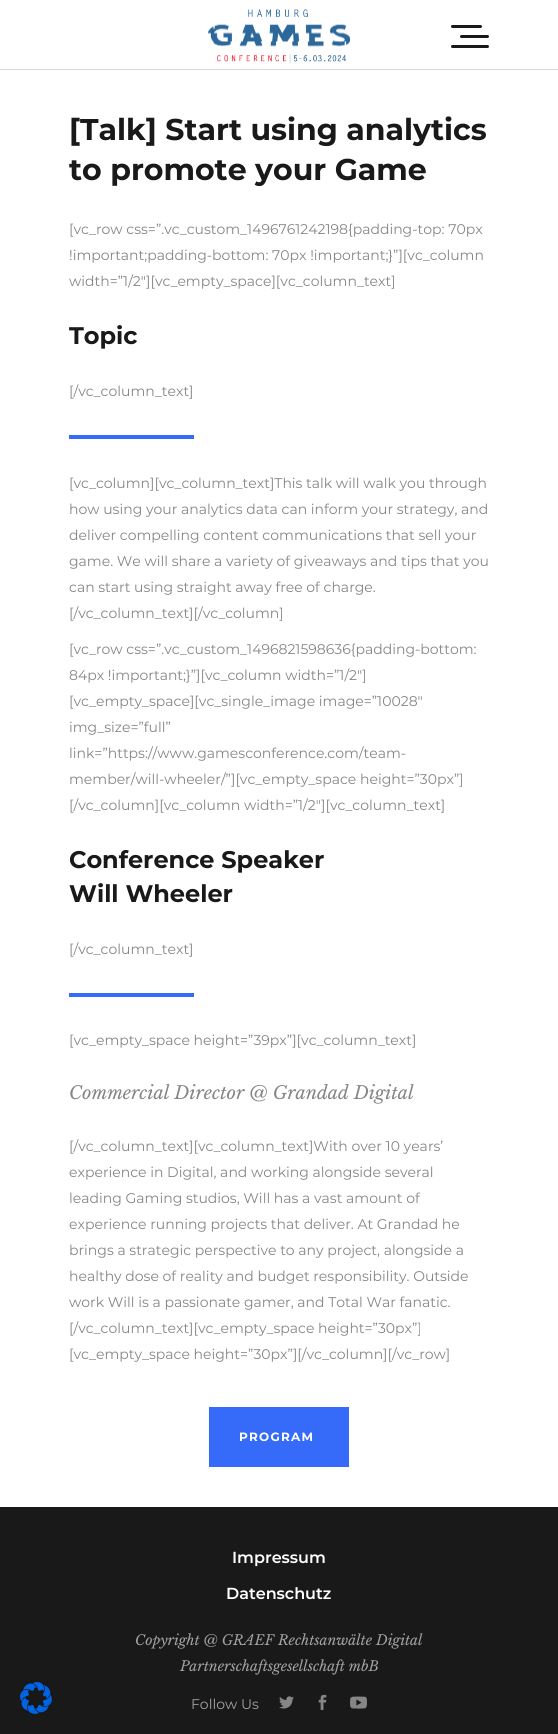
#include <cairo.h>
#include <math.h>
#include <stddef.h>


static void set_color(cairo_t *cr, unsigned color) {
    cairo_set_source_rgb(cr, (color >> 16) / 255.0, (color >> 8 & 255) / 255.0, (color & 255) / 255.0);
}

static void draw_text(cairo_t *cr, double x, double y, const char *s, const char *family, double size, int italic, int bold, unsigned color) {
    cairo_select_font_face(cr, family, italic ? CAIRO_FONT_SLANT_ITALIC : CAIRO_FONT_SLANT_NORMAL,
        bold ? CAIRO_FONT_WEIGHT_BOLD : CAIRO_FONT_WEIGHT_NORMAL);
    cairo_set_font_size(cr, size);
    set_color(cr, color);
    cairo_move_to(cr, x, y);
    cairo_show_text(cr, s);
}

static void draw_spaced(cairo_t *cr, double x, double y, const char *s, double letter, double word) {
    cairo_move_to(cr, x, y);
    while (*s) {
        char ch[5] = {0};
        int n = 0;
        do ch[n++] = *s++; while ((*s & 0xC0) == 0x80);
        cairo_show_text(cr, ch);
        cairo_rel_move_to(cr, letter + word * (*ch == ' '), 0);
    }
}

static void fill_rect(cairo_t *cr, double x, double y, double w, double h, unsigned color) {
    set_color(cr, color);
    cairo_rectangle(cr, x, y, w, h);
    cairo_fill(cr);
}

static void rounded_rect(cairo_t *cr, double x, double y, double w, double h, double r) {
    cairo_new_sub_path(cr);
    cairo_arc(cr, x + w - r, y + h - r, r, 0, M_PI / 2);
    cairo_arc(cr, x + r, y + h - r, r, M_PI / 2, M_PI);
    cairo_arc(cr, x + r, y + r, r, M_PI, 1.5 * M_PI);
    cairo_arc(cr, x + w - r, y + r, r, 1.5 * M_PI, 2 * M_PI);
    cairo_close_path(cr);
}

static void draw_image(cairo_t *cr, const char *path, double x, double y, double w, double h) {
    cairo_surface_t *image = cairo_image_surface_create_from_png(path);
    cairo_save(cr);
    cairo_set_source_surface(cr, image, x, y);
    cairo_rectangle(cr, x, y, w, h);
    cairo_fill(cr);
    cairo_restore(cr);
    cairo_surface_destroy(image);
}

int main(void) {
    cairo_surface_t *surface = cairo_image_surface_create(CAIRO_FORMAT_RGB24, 558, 1734);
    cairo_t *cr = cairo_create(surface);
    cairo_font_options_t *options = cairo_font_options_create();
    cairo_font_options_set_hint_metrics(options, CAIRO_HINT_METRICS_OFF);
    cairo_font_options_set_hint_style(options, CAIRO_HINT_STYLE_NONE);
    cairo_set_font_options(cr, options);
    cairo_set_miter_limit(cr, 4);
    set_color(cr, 0xFFFFFF);
    cairo_paint(cr);
    fill_rect(cr, 0, 1507, 558, 227, 0x191919);
    draw_image(cr, "assets/img1.png", 20, 1682, 32, 32);
    fill_rect(cr, 0, 69, 558, 1, 0xD8D8D8);
    draw_image(cr, "assets/img2.png", 208, 9, 142, 55);
    set_color(cr, 0x191919);
    rounded_rect(cr, 451, 25, 31, 3, 1.5);
    cairo_fill(cr);
    rounded_rect(cr, 460, 35, 29, 3, 1.5);
    cairo_fill(cr);
    rounded_rect(cr, 451, 45, 38, 3, 1.5);
    cairo_fill(cr);
    draw_text(cr, 69, 140, "[Talk] Start using analytics", "Montserrat", 30, 0, 1, 0x191919);
    draw_text(cr, 69, 180, "to promote your Game", "Montserrat", 30, 0, 1, 0x191919);
    draw_text(cr, 69, 234, "[vc_row css=”.vc_custom_1496761242198{padding-top: 70px", "Montserrat", 14, 0, 0, 0x868686);
    draw_text(cr, 69, 260, "!important;padding-bottom: 70px !important;}”][vc_column", "Montserrat", 14, 0, 0, 0x868686);
    draw_text(cr, 69, 286, "width=”1/2″][vc_empty_space][vc_column_text]", "Montserrat", 14, 0, 0, 0x868686);
    draw_text(cr, 69, 344, "Topic", "Montserrat", 24, 0, 1, 0x191919);
    draw_text(cr, 69, 396, "[/vc_column_text]", "Montserrat", 14, 0, 0, 0x868686);
    fill_rect(cr, 69, 435, 125, 4, 0x356BF8);
    draw_text(cr, 69, 488, "[vc_column][vc_column_text]This talk will walk you through", "Montserrat", 14, 0, 0, 0x868686);
    draw_text(cr, 69, 514, "how using your analytics data can inform your strategy, and", "Montserrat", 14, 0, 0, 0x868686);
    draw_text(cr, 69, 540, "deliver compelling content communications that sell your", "Montserrat", 14, 0, 0, 0x868686);
    draw_text(cr, 69, 566, "game. We will share a variety of giveaways and tips that you", "Montserrat", 14, 0, 0, 0x868686);
    draw_text(cr, 69, 592, "can start using straight away free of charge.", "Montserrat", 14, 0, 0, 0x868686);
    draw_text(cr, 69, 618, "[/vc_column_text][/vc_column]", "Montserrat", 14, 0, 0, 0x868686);
    draw_text(cr, 69, 654, "[vc_row css=”.vc_custom_1496821598636{padding-bottom:", "Montserrat", 14, 0, 0, 0x868686);
    draw_text(cr, 69, 680, "84px !important;}”][vc_column width=”1/2″]", "Montserrat", 14, 0, 0, 0x868686);
    draw_text(cr, 69, 706, "[vc_empty_space][vc_single_image image=”10028″", "Montserrat", 14, 0, 0, 0x868686);
    draw_text(cr, 69, 732, "img_size=”full”", "Montserrat", 14, 0, 0, 0x868686);
    draw_text(cr, 69, 758, "link=”https://www.gamesconference.com/team-", "Montserrat", 14, 0, 0, 0x868686);
    draw_text(cr, 69, 784, "member/will-wheeler/”][vc_empty_space height=”30px”]", "Montserrat", 14, 0, 0, 0x868686);
    draw_text(cr, 69, 810, "[/vc_column][vc_column width=”1/2″][vc_column_text]", "Montserrat", 14, 0, 0, 0x868686);
    draw_text(cr, 69, 868, "Conference Speaker", "Montserrat", 24, 0, 1, 0x191919);
    draw_text(cr, 69, 902, "Will Wheeler", "Montserrat", 24, 0, 1, 0x191919);
    draw_text(cr, 69, 954, "[/vc_column_text]", "Montserrat", 14, 0, 0, 0x868686);
    fill_rect(cr, 69, 993, 125, 4, 0x356BF8);
    draw_text(cr, 69, 1045, "[vc_empty_space height=”39px”][vc_column_text]", "Montserrat", 14, 0, 0, 0x868686);
    draw_text(cr, 69, 1099, "Commercial Director @ Grandad Digital", "Libre Baskerville", 18, 1, 0, 0x868686);
    draw_text(cr, 69, 1151, "[/vc_column_text][vc_column_text]With over 10 years’", "Montserrat", 14, 0, 0, 0x868686);
    draw_text(cr, 69, 1177, "experience in Digital, and working alongside several", "Montserrat", 14, 0, 0, 0x868686);
    draw_text(cr, 69, 1203, "leading Gaming studios, Will has a vast amount of", "Montserrat", 14, 0, 0, 0x868686);
    draw_text(cr, 69, 1229, "experience running projects that deliver. At Grandad he", "Montserrat", 14, 0, 0, 0x868686);
    draw_text(cr, 69, 1255, "brings a strategic perspective to any project, alongside a", "Montserrat", 14, 0, 0, 0x868686);
    draw_text(cr, 69, 1281, "healthy dose of reality and budget responsibility. Outside", "Montserrat", 14, 0, 0, 0x868686);
    draw_text(cr, 69, 1307, "work Will is a passionate gamer, and Total War fanatic.", "Montserrat", 14, 0, 0, 0x868686);
    draw_text(cr, 69, 1333, "[/vc_column_text][vc_empty_space height=”30px”]", "Montserrat", 14, 0, 0, 0x868686);
    draw_text(cr, 69, 1359, "[vc_empty_space height=”30px”][/vc_column][/vc_row]", "Montserrat", 14, 0, 0, 0x868686);
    fill_rect(cr, 209, 1407, 140, 60, 0x356BF8);
    cairo_select_font_face(cr, "Montserrat", CAIRO_FONT_SLANT_NORMAL, CAIRO_FONT_WEIGHT_BOLD);
    cairo_set_font_size(cr, 12);
    set_color(cr, 0xFFFFFF);
    draw_spaced(cr, 239, 1441, "PROGRAM", 1.25, 0);
    draw_text(cr, 232, 1563, "Impressum", "Montserrat SemiBold", 16, 0, 0, 0xFFFFFF);
    draw_text(cr, 226, 1599, "Datenschutz", "Montserrat SemiBold", 16, 0, 0, 0xFFFFFF);
    draw_text(cr, 135, 1645, "Copyright @ GRAEF Rechtsanwälte Digital", "Libre Baskerville", 14, 1, 0, 0xA2A2A2);
    draw_text(cr, 180, 1671, "Partnerschaftsgesellschaft mbB", "Libre Baskerville", 14, 1, 0, 0xA2A2A2);
    draw_text(cr, 191, 1709, "Follow Us", "Montserrat", 14, 0, 0, 0xA2A2A2);
    draw_image(cr, "assets/img3.png", 279, 1696, 15, 13);
    draw_image(cr, "assets/img4.png", 318, 1694, 9, 16);
    draw_image(cr, "assets/img5.png", 350, 1696, 17, 13);
    cairo_surface_write_to_png(surface, "output.png");
    cairo_font_options_destroy(options);
    cairo_destroy(cr);
    cairo_surface_destroy(surface);
    return 0;
}
